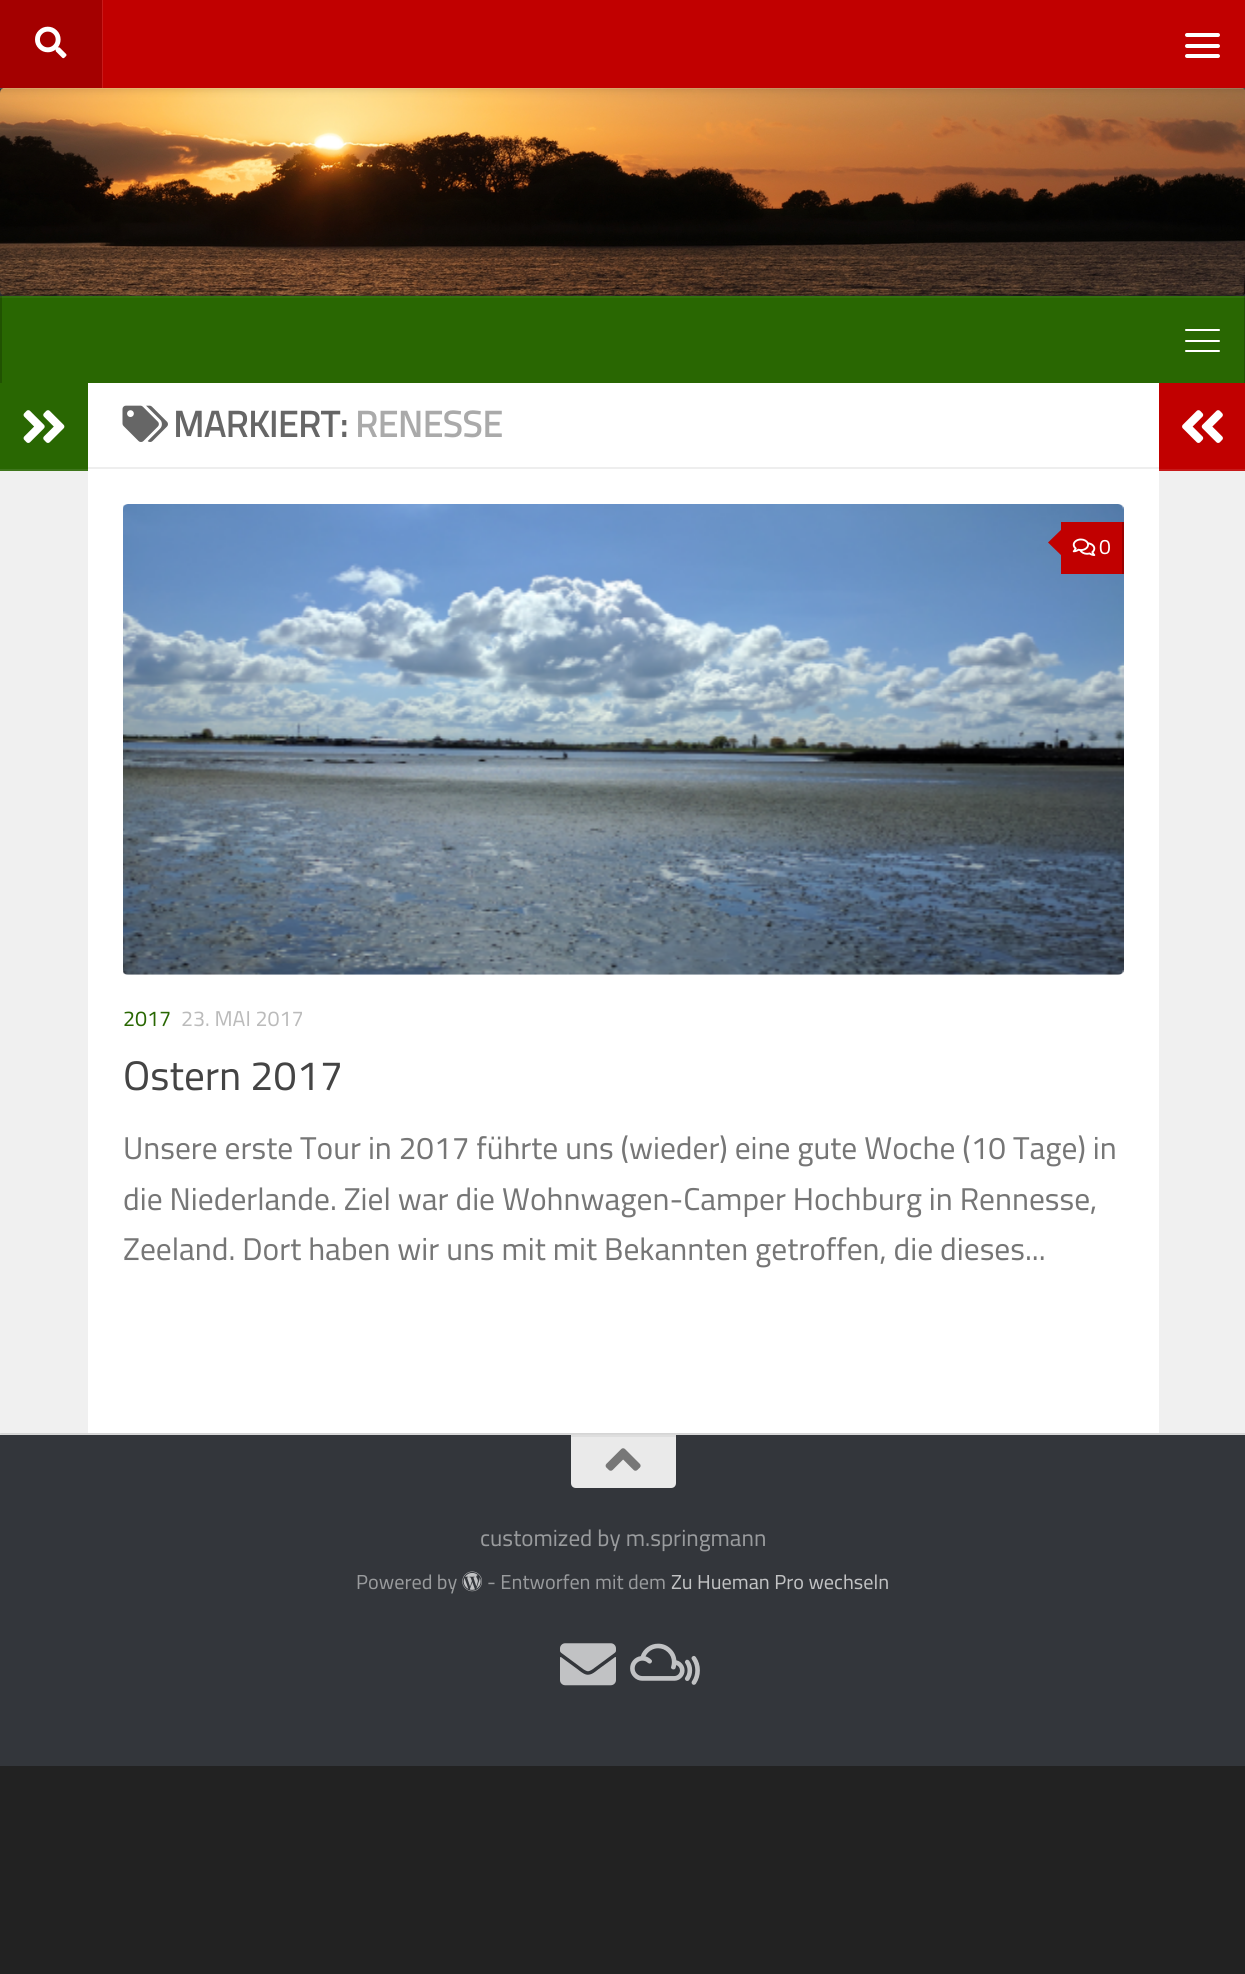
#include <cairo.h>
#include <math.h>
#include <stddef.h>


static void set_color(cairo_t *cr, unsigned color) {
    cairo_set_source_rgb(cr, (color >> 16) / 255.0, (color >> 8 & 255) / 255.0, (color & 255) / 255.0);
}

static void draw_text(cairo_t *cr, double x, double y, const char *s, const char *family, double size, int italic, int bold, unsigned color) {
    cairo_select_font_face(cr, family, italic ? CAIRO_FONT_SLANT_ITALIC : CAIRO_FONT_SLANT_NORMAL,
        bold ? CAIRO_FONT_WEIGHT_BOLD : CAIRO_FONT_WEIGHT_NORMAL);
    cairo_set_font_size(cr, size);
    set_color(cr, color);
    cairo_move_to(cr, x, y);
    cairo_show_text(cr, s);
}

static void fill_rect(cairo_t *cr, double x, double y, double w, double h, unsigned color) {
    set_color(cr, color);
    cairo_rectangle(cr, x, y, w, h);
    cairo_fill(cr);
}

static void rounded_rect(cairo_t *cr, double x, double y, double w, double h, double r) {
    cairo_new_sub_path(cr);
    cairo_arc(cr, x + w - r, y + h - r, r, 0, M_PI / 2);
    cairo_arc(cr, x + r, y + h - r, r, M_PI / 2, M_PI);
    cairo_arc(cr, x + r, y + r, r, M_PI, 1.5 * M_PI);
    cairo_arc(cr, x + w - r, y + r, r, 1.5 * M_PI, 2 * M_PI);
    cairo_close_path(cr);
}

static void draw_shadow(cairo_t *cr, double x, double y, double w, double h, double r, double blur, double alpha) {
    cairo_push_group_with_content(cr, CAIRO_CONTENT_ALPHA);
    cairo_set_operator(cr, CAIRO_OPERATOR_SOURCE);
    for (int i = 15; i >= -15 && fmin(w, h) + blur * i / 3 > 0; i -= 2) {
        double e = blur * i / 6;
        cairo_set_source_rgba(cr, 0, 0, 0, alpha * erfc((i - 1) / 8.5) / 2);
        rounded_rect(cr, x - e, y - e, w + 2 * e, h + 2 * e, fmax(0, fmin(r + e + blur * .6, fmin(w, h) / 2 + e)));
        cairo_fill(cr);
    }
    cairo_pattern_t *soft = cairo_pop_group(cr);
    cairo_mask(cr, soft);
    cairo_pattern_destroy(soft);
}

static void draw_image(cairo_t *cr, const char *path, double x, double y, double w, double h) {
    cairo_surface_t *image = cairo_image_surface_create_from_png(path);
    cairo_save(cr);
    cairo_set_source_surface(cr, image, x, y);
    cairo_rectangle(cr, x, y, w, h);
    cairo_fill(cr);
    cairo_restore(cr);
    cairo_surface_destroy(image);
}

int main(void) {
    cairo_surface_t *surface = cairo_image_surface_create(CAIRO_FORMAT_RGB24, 1245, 1974);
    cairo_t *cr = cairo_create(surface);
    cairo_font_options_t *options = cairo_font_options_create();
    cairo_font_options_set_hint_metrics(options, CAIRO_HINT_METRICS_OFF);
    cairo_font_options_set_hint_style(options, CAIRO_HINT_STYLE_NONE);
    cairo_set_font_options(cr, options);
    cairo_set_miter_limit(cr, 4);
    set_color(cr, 0x222222);
    cairo_paint(cr);
    fill_rect(cr, 0, 88, 1245, 208, 0x33363B);
    draw_image(cr, "assets/img2.png", 0, 88, 1245, 208);
    cairo_set_source_rgba(cr, 1, 1, 1, 0.15);
    cairo_rectangle(cr, 0, 88, 1245, 1);
    cairo_fill(cr);
    set_color(cr, 0x000000);
    draw_shadow(cr, 0, 0, 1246, 88, 0, 4.5, 0.2);
    fill_rect(cr, 103, 0, 1142, 88, 0xC10000);
    set_color(cr, 0xC71A1A);
    cairo_new_path(cr);
    cairo_move_to(cr, 2, 88);
    cairo_line_to(cr, 103, 88);
    cairo_line_to(cr, 103, 0);
    cairo_line_to(cr, 102, 0);
    cairo_line_to(cr, 102, 88);
    cairo_close_path(cr);
    cairo_fill(cr);
    fill_rect(cr, 0, 0, 102, 88, 0xA40000);
    draw_image(cr, "assets/img1.png", 35, 26, 32, 33);
    set_color(cr, 0xFFFFFF);
    rounded_rect(cr, 1185, 33, 35, 4, 2);
    cairo_fill(cr);
    rounded_rect(cr, 1185, 44, 35, 4, 2);
    cairo_fill(cr);
    rounded_rect(cr, 1185, 54, 35, 4, 2);
    cairo_fill(cr);
    cairo_set_source_rgba(cr, 0, 0, 0, 0.2);
    cairo_rectangle(cr, 0, 294, 1245, 2);
    cairo_fill(cr);
    fill_rect(cr, 0, 1433, 1245, 2, 0xEAEAEA);
    set_color(cr, 0x000000);
    draw_shadow(cr, 0, 385, 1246, 1050, 0, 1, 0.1);
    fill_rect(cr, 2, 296, 1242, 87, 0x296702);
    fill_rect(cr, 1244, 296, 1, 87, 0x215202);
    fill_rect(cr, 0, 296, 2, 87, 0x215202);
    cairo_set_source_rgba(cr, 1, 1, 1, 0.05);
    cairo_rectangle(cr, 0, 296, 1245, 2);
    cairo_fill(cr);
    set_color(cr, 0xFFFFFF);
    rounded_rect(cr, 1185, 329, 35, 2, 1);
    cairo_fill(cr);
    rounded_rect(cr, 1185, 340, 35, 2, 1);
    cairo_fill(cr);
    rounded_rect(cr, 1185, 350, 35, 2, 1);
    cairo_fill(cr);
    fill_rect(cr, 88, 383, 1071, 1050, 0xFFFFFF);
    fill_rect(cr, 0, 471, 88, 962, 0xF0F0F0);
    fill_rect(cr, 0, 383, 88, 86, 0x296702);
    fill_rect(cr, 0, 469, 88, 2, 0x3E761B);
    draw_image(cr, "assets/img3.png", 23, 410, 42, 33);
    fill_rect(cr, 88, 467, 1071, 2, 0xEEEEEE);
    draw_image(cr, "assets/img4.png", 122, 405, 46, 37);
    draw_text(cr, 173, 437, "MARKIERT:", "Cairo", 36.5, 0, 1, 0x666666);
    draw_text(cr, 355, 437, "RENESSE", "Cairo", 36.5, 0, 1, 0xAAAAAA);
    draw_image(cr, "assets/img5.png", 123, 504, 1001, 471);
    fill_rect(cr, 1061, 522, 61, 52, 0xC10000);
    fill_rect(cr, 1122, 522, 2, 52, 0x9A0000);
    set_color(cr, 0xC10000);
    cairo_new_path(cr);
    cairo_move_to(cr, 1064, 527);
    cairo_line_to(cr, 1064, 558);
    cairo_line_to(cr, 1048, 542.5);
    cairo_close_path(cr);
    cairo_fill(cr);
    draw_image(cr, "assets/img6.png", 1072, 538, 24, 18);
    draw_text(cr, 1099, 554, "0", "Cairo", 21, 0, 0, 0xFFFFFF);
    draw_text(cr, 123, 1026, "2017", "Cairo", 21.5, 0, 0, 0x296702);
    draw_text(cr, 181, 1026, "23. MAI 2017", "Cairo", 21.5, 0, 0, 0xBBBBBB);
    draw_text(cr, 123, 1090, "Ostern 2017", "Cairo", 41.25, 0, 0, 0x444444);
    draw_text(cr, 123, 1159, "Unsere erste Tour in 2017 führte uns (wieder) eine gute Woche (10 Tage) in", "Cairo", 31.5, 0, 0, 0x767676);
    draw_text(cr, 123, 1210, "die Niederlande. Ziel war die Wohnwagen-Camper Hochburg in Rennesse,", "Cairo", 31.5, 0, 0, 0x767676);
    draw_text(cr, 123, 1260, "Zeeland. Dort haben wir uns mit mit Bekannten getroffen, die dieses...", "Cairo", 31.5, 0, 0, 0x767676);
    fill_rect(cr, 1159, 383, 86, 86, 0xC10000);
    fill_rect(cr, 1159, 469, 86, 2, 0xC71A1A);
    draw_image(cr, "assets/img7.png", 1182, 410, 41, 33);
    fill_rect(cr, 1159, 471, 86, 962, 0xF0F0F0);
    fill_rect(cr, 0, 1435, 1245, 331, 0x33363B);
    set_color(cr, 0xEAEAEA);
    cairo_new_path(cr);
    cairo_move_to(cr, 571, 1435);
    cairo_line_to(cr, 676, 1435);
    cairo_line_to(cr, 676, 1483);
    cairo_curve_to(cr, 676, 1486, 674, 1488, 671, 1488);
    cairo_line_to(cr, 576, 1488);
    cairo_curve_to(cr, 573, 1488, 571, 1486, 571, 1483);
    cairo_close_path(cr);
    cairo_fill(cr);
    fill_rect(cr, 571, 1435, 105, 2, 0xDEDEDE);
    draw_image(cr, "assets/img8.png", 605, 1448, 36, 23);
    draw_text(cr, 480, 1546, "customized by m.springmann", "Cairo", 23.1, 0, 0, 0x999B9D);
    draw_text(cr, 356, 1589, "Powered by", "Cairo", 20.25, 0, 0, 0x999B9D);
    draw_image(cr, "assets/img9.png", 462, 1571, 20, 21);
    draw_text(cr, 487, 1589, "- Entworfen mit dem", "Cairo", 20.25, 0, 0, 0x999B9D);
    draw_text(cr, 671, 1589, "Zu Hueman Pro wechseln", "Cairo", 20.25, 0, 0, 0xC2C3C4);
    draw_image(cr, "assets/img10.png", 560, 1643, 56, 43);
    draw_image(cr, "assets/img11.png", 630, 1643, 70, 42);
    cairo_surface_write_to_png(surface, "output.png");
    cairo_font_options_destroy(options);
    cairo_destroy(cr);
    cairo_surface_destroy(surface);
    return 0;
}
